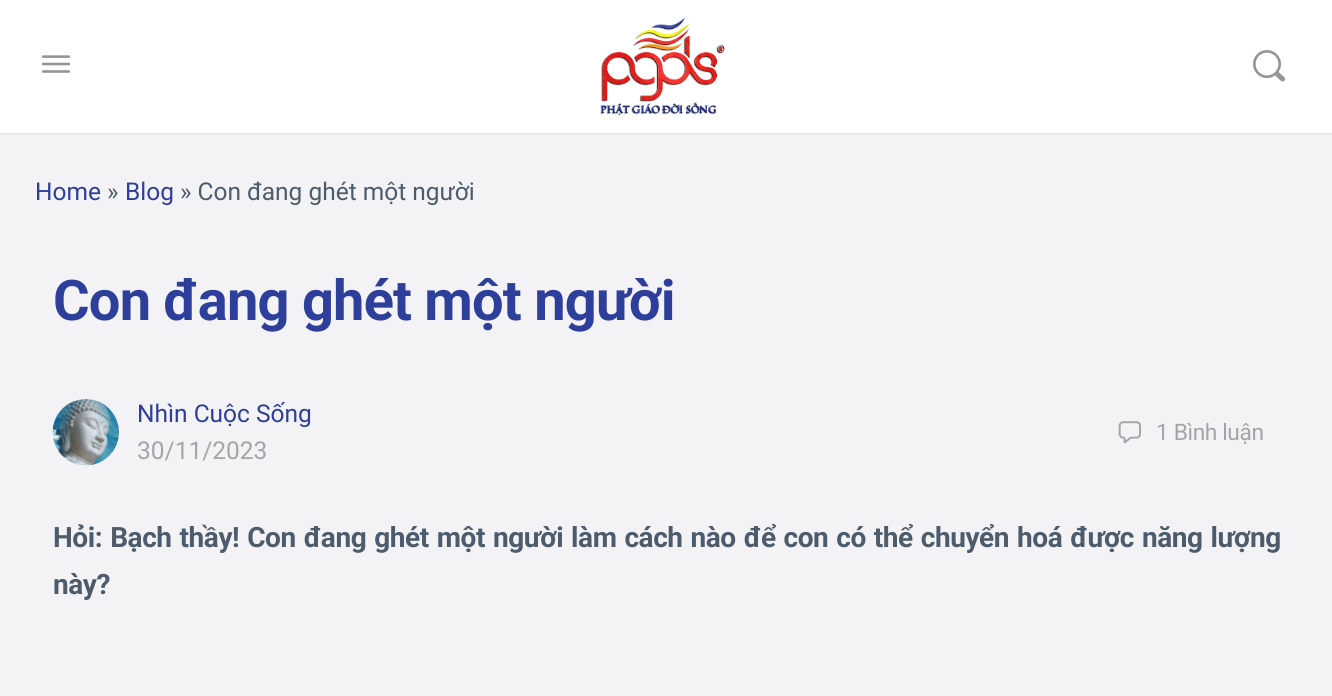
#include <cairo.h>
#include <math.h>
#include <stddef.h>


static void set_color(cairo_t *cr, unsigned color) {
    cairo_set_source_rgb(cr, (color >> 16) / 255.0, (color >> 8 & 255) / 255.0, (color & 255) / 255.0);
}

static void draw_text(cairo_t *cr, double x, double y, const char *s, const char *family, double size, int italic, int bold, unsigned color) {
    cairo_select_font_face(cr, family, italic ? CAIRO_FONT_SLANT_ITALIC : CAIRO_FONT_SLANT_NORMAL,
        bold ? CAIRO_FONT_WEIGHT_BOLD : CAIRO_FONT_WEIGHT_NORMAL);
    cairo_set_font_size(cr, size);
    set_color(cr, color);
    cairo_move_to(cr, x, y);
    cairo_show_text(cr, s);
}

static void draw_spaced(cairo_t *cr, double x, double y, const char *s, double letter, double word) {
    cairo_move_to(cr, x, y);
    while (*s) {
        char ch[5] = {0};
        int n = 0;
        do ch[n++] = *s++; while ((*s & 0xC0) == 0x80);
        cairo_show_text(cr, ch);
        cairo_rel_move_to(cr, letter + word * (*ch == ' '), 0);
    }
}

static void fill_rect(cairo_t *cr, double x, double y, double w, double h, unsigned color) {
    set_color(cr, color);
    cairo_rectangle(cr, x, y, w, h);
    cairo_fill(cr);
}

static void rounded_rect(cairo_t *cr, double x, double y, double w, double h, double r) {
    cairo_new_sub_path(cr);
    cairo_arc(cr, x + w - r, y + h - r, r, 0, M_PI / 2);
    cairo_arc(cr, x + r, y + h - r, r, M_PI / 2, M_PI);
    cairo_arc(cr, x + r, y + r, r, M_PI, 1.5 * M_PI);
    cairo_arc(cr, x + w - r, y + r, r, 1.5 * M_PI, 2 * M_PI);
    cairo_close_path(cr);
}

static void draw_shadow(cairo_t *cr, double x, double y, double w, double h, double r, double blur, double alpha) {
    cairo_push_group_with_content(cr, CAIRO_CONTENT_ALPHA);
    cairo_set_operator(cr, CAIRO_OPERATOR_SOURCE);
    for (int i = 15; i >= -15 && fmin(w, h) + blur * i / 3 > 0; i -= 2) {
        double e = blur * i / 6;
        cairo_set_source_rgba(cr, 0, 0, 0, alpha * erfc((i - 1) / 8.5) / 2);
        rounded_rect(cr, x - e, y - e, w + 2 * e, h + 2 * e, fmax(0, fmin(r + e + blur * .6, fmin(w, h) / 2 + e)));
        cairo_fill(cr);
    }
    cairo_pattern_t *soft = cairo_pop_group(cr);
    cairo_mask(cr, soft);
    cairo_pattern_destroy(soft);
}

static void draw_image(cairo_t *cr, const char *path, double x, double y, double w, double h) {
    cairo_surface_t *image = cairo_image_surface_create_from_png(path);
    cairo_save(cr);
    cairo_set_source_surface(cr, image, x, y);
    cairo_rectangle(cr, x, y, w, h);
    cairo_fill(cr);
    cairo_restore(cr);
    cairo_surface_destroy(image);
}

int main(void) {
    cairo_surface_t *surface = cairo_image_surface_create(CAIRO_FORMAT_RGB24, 1332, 696);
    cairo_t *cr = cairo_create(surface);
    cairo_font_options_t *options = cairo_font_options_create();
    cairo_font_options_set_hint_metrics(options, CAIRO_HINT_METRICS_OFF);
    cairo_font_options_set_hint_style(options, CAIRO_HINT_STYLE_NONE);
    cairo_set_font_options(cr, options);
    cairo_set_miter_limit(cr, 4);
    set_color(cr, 0xF3F2F4);
    cairo_paint(cr);
    set_color(cr, 0x41476C);
    draw_shadow(cr, 0, 0, 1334, 133, 0, 1, 0.15);
    cairo_set_source_rgba(cr, 0.545, 0.553, 0.616, 0.05);
    cairo_new_path(cr);
    cairo_move_to(cr, 0, 133);
    cairo_line_to(cr, 0, 135);
    cairo_line_to(cr, 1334, 135);
    cairo_line_to(cr, 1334, 2);
    cairo_line_to(cr, 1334, 133);
    cairo_close_path(cr);
    cairo_fill(cr);
    fill_rect(cr, 0, 0, 1332, 133, 0xFFFFFF);
    draw_image(cr, "assets/img1.png", 42, 55, 28, 18);
    draw_image(cr, "assets/img2.png", 600, 17, 125, 99);
    draw_image(cr, "assets/img3.png", 1253, 50, 33, 32);
    draw_text(cr, 35, 200, "Home", "Roboto", 24.5, 0, 0, 0x2E3F9B);
    draw_text(cr, 107, 200, "»", "Roboto", 24.5, 0, 0, 0x4D5C6D);
    draw_text(cr, 125, 200, "Blog", "Roboto", 24.5, 0, 0, 0x2E3F9B);
    draw_text(cr, 180, 200, "» Con đang ghét một người", "Roboto", 24.5, 0, 0, 0x4D5C6D);
    cairo_select_font_face(cr, "Roboto", CAIRO_FONT_SLANT_NORMAL, CAIRO_FONT_WEIGHT_BOLD);
    cairo_set_font_size(cr, 56);
    set_color(cr, 0x2E3F9B);
    draw_spaced(cr, 53, 320, "Con đang ghét một người", -0.8, 0);
    draw_image(cr, "assets/img4.png", 52, 399, 67, 67);
    draw_text(cr, 137, 422, "Nhìn Cuộc Sống", "Roboto", 24.5, 0, 0, 0x2E3F9B);
    draw_text(cr, 137, 459, "30/11/2023", "Roboto", 24.5, 0, 0, 0xA3A5A9);
    draw_image(cr, "assets/img5.png", 1118, 421, 23, 23);
    cairo_set_font_size(cr, 22.75);
    draw_spaced(cr, 1156, 440, "1 Bình luận", -0.4, 0);
    cairo_select_font_face(cr, "Roboto", CAIRO_FONT_SLANT_NORMAL, CAIRO_FONT_WEIGHT_BOLD);
    cairo_set_font_size(cr, 28);
    set_color(cr, 0x4D5C6D);
    draw_spaced(cr, 53, 547, "Hỏi: Bạch thầy! Con đang ghét một người làm cách nào để con có thể chuyển hoá được năng lượng", -0.42, 1.4);
    draw_spaced(cr, 53, 594, "này?", -0.42, 0);
    cairo_surface_write_to_png(surface, "output.png");
    cairo_font_options_destroy(options);
    cairo_destroy(cr);
    cairo_surface_destroy(surface);
    return 0;
}
